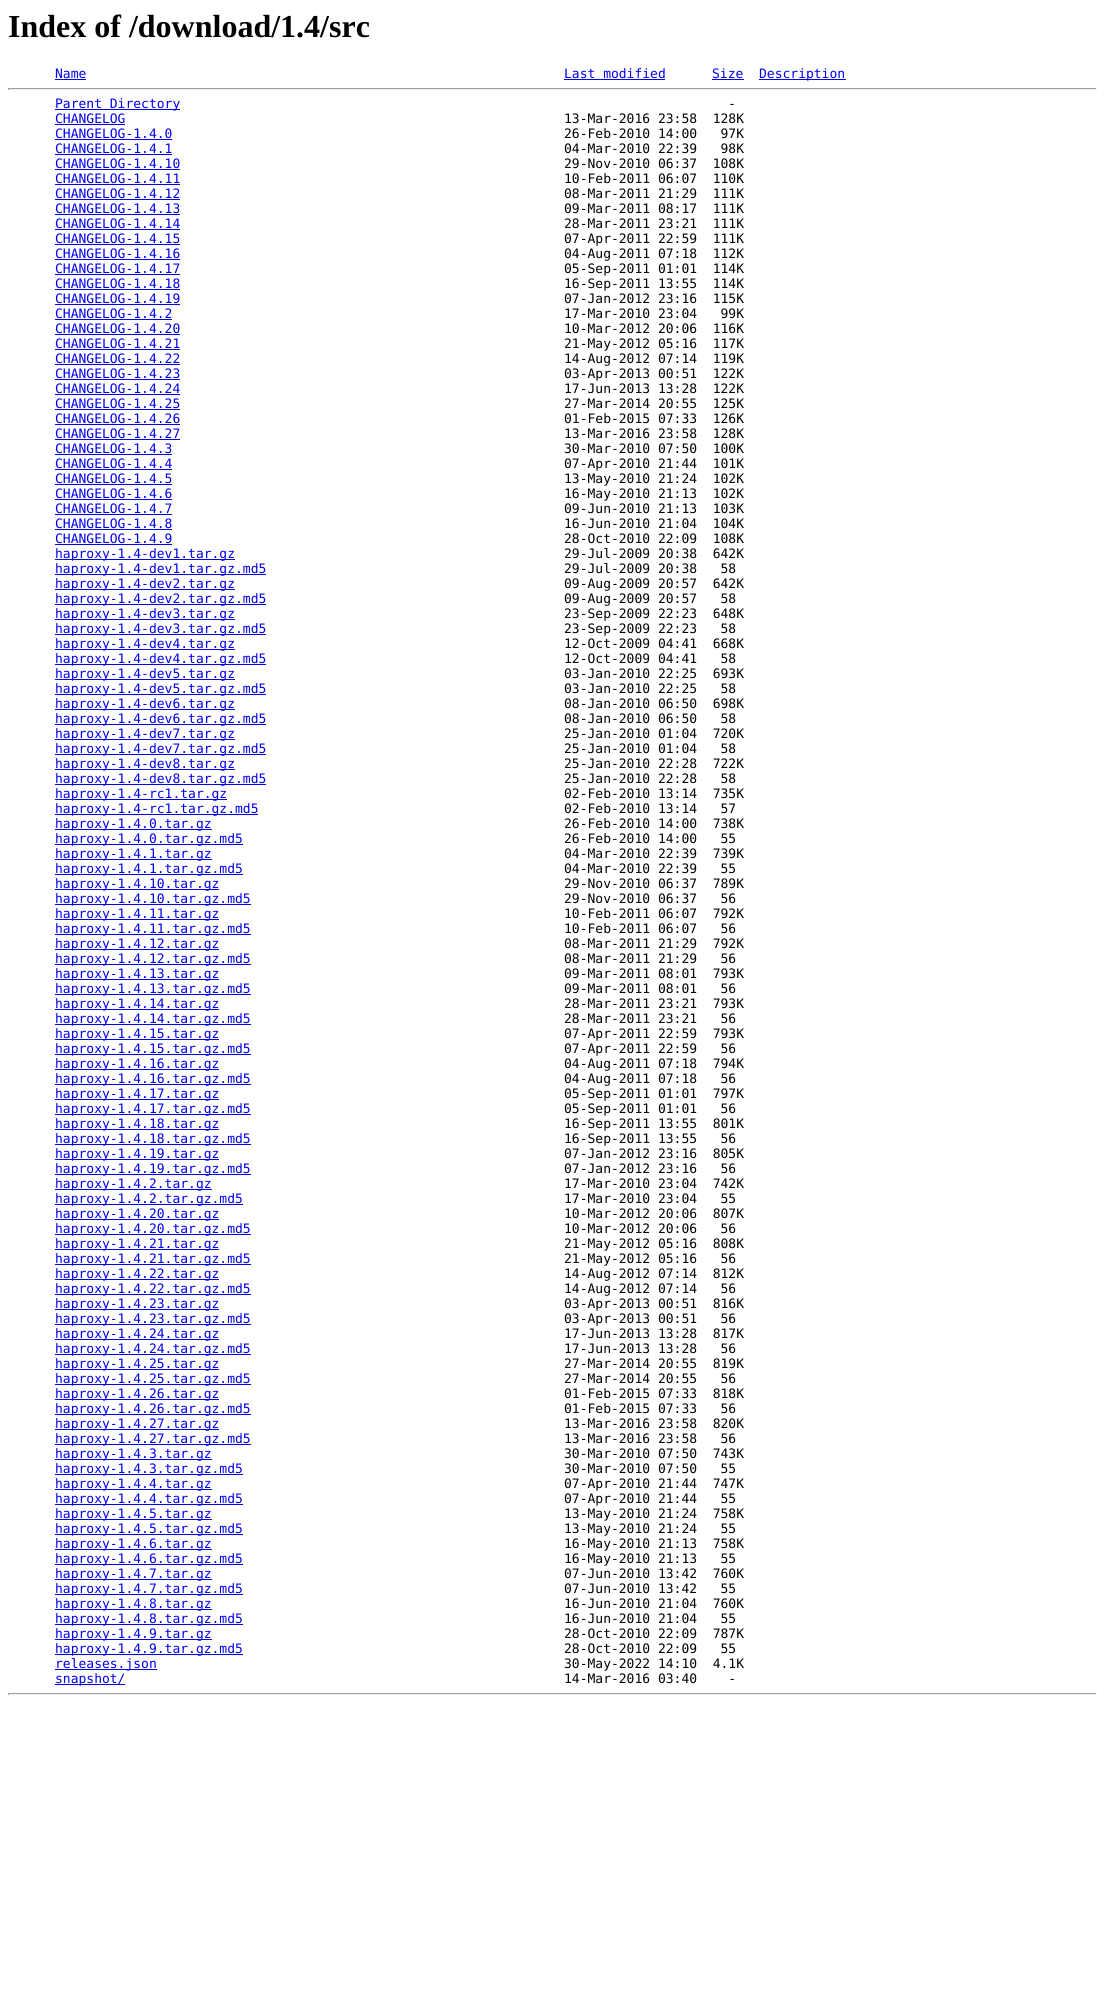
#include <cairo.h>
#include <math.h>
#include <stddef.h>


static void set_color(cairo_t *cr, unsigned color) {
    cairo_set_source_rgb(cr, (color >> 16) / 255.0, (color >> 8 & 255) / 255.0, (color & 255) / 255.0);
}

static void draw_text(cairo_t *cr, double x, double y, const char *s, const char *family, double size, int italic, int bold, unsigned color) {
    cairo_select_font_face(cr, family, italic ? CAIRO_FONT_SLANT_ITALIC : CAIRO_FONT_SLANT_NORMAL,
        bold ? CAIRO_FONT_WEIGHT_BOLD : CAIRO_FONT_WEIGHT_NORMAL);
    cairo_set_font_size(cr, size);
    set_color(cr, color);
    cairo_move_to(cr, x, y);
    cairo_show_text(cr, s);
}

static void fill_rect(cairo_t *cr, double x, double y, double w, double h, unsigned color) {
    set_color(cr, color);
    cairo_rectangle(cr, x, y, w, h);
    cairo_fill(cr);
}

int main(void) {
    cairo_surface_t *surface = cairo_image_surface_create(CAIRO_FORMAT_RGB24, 1105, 2006);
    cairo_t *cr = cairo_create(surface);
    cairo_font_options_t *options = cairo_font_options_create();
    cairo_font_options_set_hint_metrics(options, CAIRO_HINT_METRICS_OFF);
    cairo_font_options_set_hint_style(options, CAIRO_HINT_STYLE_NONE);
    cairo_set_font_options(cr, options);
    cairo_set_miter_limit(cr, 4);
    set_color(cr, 0xFFFFFF);
    cairo_paint(cr);
    draw_text(cr, 8, 37, "Index of /download/1.4/src", "Liberation Serif", 32, 0, 1, 0x000000);
    draw_text(cr, 55, 78, "Name", "DejaVu Sans Mono", 13, 0, 0, 0x0000EE);
    fill_rect(cr, 55, 79, 31, 1, 0x0000EE);
    draw_text(cr, 564, 78, "Last modified", "DejaVu Sans Mono", 13, 0, 0, 0x0000EE);
    fill_rect(cr, 564, 79, 101, 1, 0x0000EE);
    draw_text(cr, 712, 78, "Size", "DejaVu Sans Mono", 13, 0, 0, 0x0000EE);
    fill_rect(cr, 712, 79, 32, 1, 0x0000EE);
    fill_rect(cr, 759, 79, 87, 1, 0x0000EE);
    draw_text(cr, 759, 78, "Description", "DejaVu Sans Mono", 13, 0, 0, 0x0000EE);
    fill_rect(cr, 8, 88, 1089, 1, 0x9F9F9F);
    fill_rect(cr, 1096, 88, 1, 2, 0xEEEEEE);
    fill_rect(cr, 8, 89, 1089, 1, 0xEEEEEE);
    fill_rect(cr, 8, 88, 1, 2, 0x9F9F9F);
    fill_rect(cr, 55, 109, 125, 1, 0x0000EE);
    draw_text(cr, 55, 108, "Parent Directory", "DejaVu Sans Mono", 13, 0, 0, 0x0000EE);
    draw_text(cr, 728, 108, "-", "DejaVu Sans Mono", 13, 0, 0, 0x000000);
    draw_text(cr, 55, 123, "CHANGELOG", "DejaVu Sans Mono", 13, 0, 0, 0x0000EE);
    fill_rect(cr, 55, 124, 70, 1, 0x0000EE);
    draw_text(cr, 564, 123, "13-Mar-2016 23:58  128K", "DejaVu Sans Mono", 13, 0, 0, 0x000000);
    draw_text(cr, 55, 138, "CHANGELOG-1.4.0", "DejaVu Sans Mono", 13, 0, 0, 0x0000EE);
    fill_rect(cr, 55, 139, 117, 1, 0x0000EE);
    draw_text(cr, 564, 138, "26-Feb-2010 14:00   97K", "DejaVu Sans Mono", 13, 0, 0, 0x000000);
    draw_text(cr, 55, 153, "CHANGELOG-1.4.1", "DejaVu Sans Mono", 13, 0, 0, 0x0000EE);
    fill_rect(cr, 55, 154, 117, 1, 0x0000EE);
    draw_text(cr, 564, 153, "04-Mar-2010 22:39   98K", "DejaVu Sans Mono", 13, 0, 0, 0x000000);
    draw_text(cr, 55, 168, "CHANGELOG-1.4.10", "DejaVu Sans Mono", 13, 0, 0, 0x0000EE);
    fill_rect(cr, 55, 169, 125, 1, 0x0000EE);
    draw_text(cr, 564, 168, "29-Nov-2010 06:37  108K", "DejaVu Sans Mono", 13, 0, 0, 0x000000);
    draw_text(cr, 55, 183, "CHANGELOG-1.4.11", "DejaVu Sans Mono", 13, 0, 0, 0x0000EE);
    fill_rect(cr, 55, 184, 125, 1, 0x0000EE);
    draw_text(cr, 564, 183, "10-Feb-2011 06:07  110K", "DejaVu Sans Mono", 13, 0, 0, 0x000000);
    draw_text(cr, 55, 198, "CHANGELOG-1.4.12", "DejaVu Sans Mono", 13, 0, 0, 0x0000EE);
    fill_rect(cr, 55, 199, 125, 1, 0x0000EE);
    draw_text(cr, 564, 198, "08-Mar-2011 21:29  111K", "DejaVu Sans Mono", 13, 0, 0, 0x000000);
    draw_text(cr, 55, 213, "CHANGELOG-1.4.13", "DejaVu Sans Mono", 13, 0, 0, 0x0000EE);
    fill_rect(cr, 55, 214, 125, 1, 0x0000EE);
    draw_text(cr, 564, 213, "09-Mar-2011 08:17  111K", "DejaVu Sans Mono", 13, 0, 0, 0x000000);
    draw_text(cr, 55, 228, "CHANGELOG-1.4.14", "DejaVu Sans Mono", 13, 0, 0, 0x0000EE);
    fill_rect(cr, 55, 229, 125, 1, 0x0000EE);
    draw_text(cr, 564, 228, "28-Mar-2011 23:21  111K", "DejaVu Sans Mono", 13, 0, 0, 0x000000);
    draw_text(cr, 55, 243, "CHANGELOG-1.4.15", "DejaVu Sans Mono", 13, 0, 0, 0x0000EE);
    fill_rect(cr, 55, 244, 125, 1, 0x0000EE);
    draw_text(cr, 564, 243, "07-Apr-2011 22:59  111K", "DejaVu Sans Mono", 13, 0, 0, 0x000000);
    draw_text(cr, 55, 258, "CHANGELOG-1.4.16", "DejaVu Sans Mono", 13, 0, 0, 0x0000EE);
    fill_rect(cr, 55, 259, 125, 1, 0x0000EE);
    draw_text(cr, 564, 258, "04-Aug-2011 07:18  112K", "DejaVu Sans Mono", 13, 0, 0, 0x000000);
    draw_text(cr, 55, 273, "CHANGELOG-1.4.17", "DejaVu Sans Mono", 13, 0, 0, 0x0000EE);
    fill_rect(cr, 55, 274, 125, 1, 0x0000EE);
    draw_text(cr, 564, 273, "05-Sep-2011 01:01  114K", "DejaVu Sans Mono", 13, 0, 0, 0x000000);
    draw_text(cr, 55, 288, "CHANGELOG-1.4.18", "DejaVu Sans Mono", 13, 0, 0, 0x0000EE);
    fill_rect(cr, 55, 289, 125, 1, 0x0000EE);
    draw_text(cr, 564, 288, "16-Sep-2011 13:55  114K", "DejaVu Sans Mono", 13, 0, 0, 0x000000);
    draw_text(cr, 55, 303, "CHANGELOG-1.4.19", "DejaVu Sans Mono", 13, 0, 0, 0x0000EE);
    fill_rect(cr, 55, 304, 125, 1, 0x0000EE);
    draw_text(cr, 564, 303, "07-Jan-2012 23:16  115K", "DejaVu Sans Mono", 13, 0, 0, 0x000000);
    draw_text(cr, 55, 318, "CHANGELOG-1.4.2", "DejaVu Sans Mono", 13, 0, 0, 0x0000EE);
    fill_rect(cr, 55, 319, 117, 1, 0x0000EE);
    draw_text(cr, 564, 318, "17-Mar-2010 23:04   99K", "DejaVu Sans Mono", 13, 0, 0, 0x000000);
    draw_text(cr, 55, 333, "CHANGELOG-1.4.20", "DejaVu Sans Mono", 13, 0, 0, 0x0000EE);
    fill_rect(cr, 55, 334, 125, 1, 0x0000EE);
    draw_text(cr, 564, 333, "10-Mar-2012 20:06  116K", "DejaVu Sans Mono", 13, 0, 0, 0x000000);
    draw_text(cr, 55, 348, "CHANGELOG-1.4.21", "DejaVu Sans Mono", 13, 0, 0, 0x0000EE);
    fill_rect(cr, 55, 349, 125, 1, 0x0000EE);
    draw_text(cr, 564, 348, "21-May-2012 05:16  117K", "DejaVu Sans Mono", 13, 0, 0, 0x000000);
    draw_text(cr, 55, 363, "CHANGELOG-1.4.22", "DejaVu Sans Mono", 13, 0, 0, 0x0000EE);
    fill_rect(cr, 55, 364, 125, 1, 0x0000EE);
    draw_text(cr, 564, 363, "14-Aug-2012 07:14  119K", "DejaVu Sans Mono", 13, 0, 0, 0x000000);
    draw_text(cr, 55, 378, "CHANGELOG-1.4.23", "DejaVu Sans Mono", 13, 0, 0, 0x0000EE);
    fill_rect(cr, 55, 379, 125, 1, 0x0000EE);
    draw_text(cr, 564, 378, "03-Apr-2013 00:51  122K", "DejaVu Sans Mono", 13, 0, 0, 0x000000);
    draw_text(cr, 55, 393, "CHANGELOG-1.4.24", "DejaVu Sans Mono", 13, 0, 0, 0x0000EE);
    fill_rect(cr, 55, 394, 125, 1, 0x0000EE);
    draw_text(cr, 564, 393, "17-Jun-2013 13:28  122K", "DejaVu Sans Mono", 13, 0, 0, 0x000000);
    draw_text(cr, 55, 408, "CHANGELOG-1.4.25", "DejaVu Sans Mono", 13, 0, 0, 0x0000EE);
    fill_rect(cr, 55, 409, 125, 1, 0x0000EE);
    draw_text(cr, 564, 408, "27-Mar-2014 20:55  125K", "DejaVu Sans Mono", 13, 0, 0, 0x000000);
    draw_text(cr, 55, 423, "CHANGELOG-1.4.26", "DejaVu Sans Mono", 13, 0, 0, 0x0000EE);
    fill_rect(cr, 55, 424, 125, 1, 0x0000EE);
    draw_text(cr, 564, 423, "01-Feb-2015 07:33  126K", "DejaVu Sans Mono", 13, 0, 0, 0x000000);
    draw_text(cr, 55, 438, "CHANGELOG-1.4.27", "DejaVu Sans Mono", 13, 0, 0, 0x0000EE);
    fill_rect(cr, 55, 439, 125, 1, 0x0000EE);
    draw_text(cr, 564, 438, "13-Mar-2016 23:58  128K", "DejaVu Sans Mono", 13, 0, 0, 0x000000);
    draw_text(cr, 55, 453, "CHANGELOG-1.4.3", "DejaVu Sans Mono", 13, 0, 0, 0x0000EE);
    fill_rect(cr, 55, 454, 117, 1, 0x0000EE);
    draw_text(cr, 564, 453, "30-Mar-2010 07:50  100K", "DejaVu Sans Mono", 13, 0, 0, 0x000000);
    draw_text(cr, 55, 468, "CHANGELOG-1.4.4", "DejaVu Sans Mono", 13, 0, 0, 0x0000EE);
    fill_rect(cr, 55, 469, 117, 1, 0x0000EE);
    draw_text(cr, 564, 468, "07-Apr-2010 21:44  101K", "DejaVu Sans Mono", 13, 0, 0, 0x000000);
    draw_text(cr, 55, 483, "CHANGELOG-1.4.5", "DejaVu Sans Mono", 13, 0, 0, 0x0000EE);
    fill_rect(cr, 55, 484, 117, 1, 0x0000EE);
    draw_text(cr, 564, 483, "13-May-2010 21:24  102K", "DejaVu Sans Mono", 13, 0, 0, 0x000000);
    draw_text(cr, 55, 498, "CHANGELOG-1.4.6", "DejaVu Sans Mono", 13, 0, 0, 0x0000EE);
    fill_rect(cr, 55, 499, 117, 1, 0x0000EE);
    draw_text(cr, 564, 498, "16-May-2010 21:13  102K", "DejaVu Sans Mono", 13, 0, 0, 0x000000);
    draw_text(cr, 55, 513, "CHANGELOG-1.4.7", "DejaVu Sans Mono", 13, 0, 0, 0x0000EE);
    fill_rect(cr, 55, 514, 117, 1, 0x0000EE);
    draw_text(cr, 564, 513, "09-Jun-2010 21:13  103K", "DejaVu Sans Mono", 13, 0, 0, 0x000000);
    draw_text(cr, 55, 528, "CHANGELOG-1.4.8", "DejaVu Sans Mono", 13, 0, 0, 0x0000EE);
    fill_rect(cr, 55, 529, 117, 1, 0x0000EE);
    draw_text(cr, 564, 528, "16-Jun-2010 21:04  104K", "DejaVu Sans Mono", 13, 0, 0, 0x000000);
    draw_text(cr, 55, 543, "CHANGELOG-1.4.9", "DejaVu Sans Mono", 13, 0, 0, 0x0000EE);
    fill_rect(cr, 55, 544, 117, 1, 0x0000EE);
    draw_text(cr, 564, 543, "28-Oct-2010 22:09  108K", "DejaVu Sans Mono", 13, 0, 0, 0x000000);
    fill_rect(cr, 55, 559, 180, 1, 0x0000EE);
    draw_text(cr, 55, 558, "haproxy-1.4-dev1.tar.gz", "DejaVu Sans Mono", 13, 0, 0, 0x0000EE);
    draw_text(cr, 564, 558, "29-Jul-2009 20:38  642K", "DejaVu Sans Mono", 13, 0, 0, 0x000000);
    fill_rect(cr, 55, 574, 211, 1, 0x0000EE);
    draw_text(cr, 55, 573, "haproxy-1.4-dev1.tar.gz.md5", "DejaVu Sans Mono", 13, 0, 0, 0x0000EE);
    draw_text(cr, 564, 573, "29-Jul-2009 20:38   58", "DejaVu Sans Mono", 13, 0, 0, 0x000000);
    fill_rect(cr, 55, 589, 180, 1, 0x0000EE);
    draw_text(cr, 55, 588, "haproxy-1.4-dev2.tar.gz", "DejaVu Sans Mono", 13, 0, 0, 0x0000EE);
    draw_text(cr, 564, 588, "09-Aug-2009 20:57  642K", "DejaVu Sans Mono", 13, 0, 0, 0x000000);
    fill_rect(cr, 55, 604, 211, 1, 0x0000EE);
    draw_text(cr, 55, 603, "haproxy-1.4-dev2.tar.gz.md5", "DejaVu Sans Mono", 13, 0, 0, 0x0000EE);
    draw_text(cr, 564, 603, "09-Aug-2009 20:57   58", "DejaVu Sans Mono", 13, 0, 0, 0x000000);
    fill_rect(cr, 55, 619, 180, 1, 0x0000EE);
    draw_text(cr, 55, 618, "haproxy-1.4-dev3.tar.gz", "DejaVu Sans Mono", 13, 0, 0, 0x0000EE);
    draw_text(cr, 564, 618, "23-Sep-2009 22:23  648K", "DejaVu Sans Mono", 13, 0, 0, 0x000000);
    fill_rect(cr, 55, 634, 211, 1, 0x0000EE);
    draw_text(cr, 55, 633, "haproxy-1.4-dev3.tar.gz.md5", "DejaVu Sans Mono", 13, 0, 0, 0x0000EE);
    draw_text(cr, 564, 633, "23-Sep-2009 22:23   58", "DejaVu Sans Mono", 13, 0, 0, 0x000000);
    fill_rect(cr, 55, 649, 180, 1, 0x0000EE);
    draw_text(cr, 55, 648, "haproxy-1.4-dev4.tar.gz", "DejaVu Sans Mono", 13, 0, 0, 0x0000EE);
    draw_text(cr, 564, 648, "12-Oct-2009 04:41  668K", "DejaVu Sans Mono", 13, 0, 0, 0x000000);
    fill_rect(cr, 55, 664, 211, 1, 0x0000EE);
    draw_text(cr, 55, 663, "haproxy-1.4-dev4.tar.gz.md5", "DejaVu Sans Mono", 13, 0, 0, 0x0000EE);
    draw_text(cr, 564, 663, "12-Oct-2009 04:41   58", "DejaVu Sans Mono", 13, 0, 0, 0x000000);
    fill_rect(cr, 55, 679, 180, 1, 0x0000EE);
    draw_text(cr, 55, 678, "haproxy-1.4-dev5.tar.gz", "DejaVu Sans Mono", 13, 0, 0, 0x0000EE);
    draw_text(cr, 564, 678, "03-Jan-2010 22:25  693K", "DejaVu Sans Mono", 13, 0, 0, 0x000000);
    fill_rect(cr, 55, 694, 211, 1, 0x0000EE);
    draw_text(cr, 55, 693, "haproxy-1.4-dev5.tar.gz.md5", "DejaVu Sans Mono", 13, 0, 0, 0x0000EE);
    draw_text(cr, 564, 693, "03-Jan-2010 22:25   58", "DejaVu Sans Mono", 13, 0, 0, 0x000000);
    fill_rect(cr, 55, 709, 180, 1, 0x0000EE);
    draw_text(cr, 55, 708, "haproxy-1.4-dev6.tar.gz", "DejaVu Sans Mono", 13, 0, 0, 0x0000EE);
    draw_text(cr, 564, 708, "08-Jan-2010 06:50  698K", "DejaVu Sans Mono", 13, 0, 0, 0x000000);
    fill_rect(cr, 55, 724, 211, 1, 0x0000EE);
    draw_text(cr, 55, 723, "haproxy-1.4-dev6.tar.gz.md5", "DejaVu Sans Mono", 13, 0, 0, 0x0000EE);
    draw_text(cr, 564, 723, "08-Jan-2010 06:50   58", "DejaVu Sans Mono", 13, 0, 0, 0x000000);
    fill_rect(cr, 55, 739, 180, 1, 0x0000EE);
    draw_text(cr, 55, 738, "haproxy-1.4-dev7.tar.gz", "DejaVu Sans Mono", 13, 0, 0, 0x0000EE);
    draw_text(cr, 564, 738, "25-Jan-2010 01:04  720K", "DejaVu Sans Mono", 13, 0, 0, 0x000000);
    fill_rect(cr, 55, 754, 211, 1, 0x0000EE);
    draw_text(cr, 55, 753, "haproxy-1.4-dev7.tar.gz.md5", "DejaVu Sans Mono", 13, 0, 0, 0x0000EE);
    draw_text(cr, 564, 753, "25-Jan-2010 01:04   58", "DejaVu Sans Mono", 13, 0, 0, 0x000000);
    fill_rect(cr, 55, 769, 180, 1, 0x0000EE);
    draw_text(cr, 55, 768, "haproxy-1.4-dev8.tar.gz", "DejaVu Sans Mono", 13, 0, 0, 0x0000EE);
    draw_text(cr, 564, 768, "25-Jan-2010 22:28  722K", "DejaVu Sans Mono", 13, 0, 0, 0x000000);
    fill_rect(cr, 55, 784, 211, 1, 0x0000EE);
    draw_text(cr, 55, 783, "haproxy-1.4-dev8.tar.gz.md5", "DejaVu Sans Mono", 13, 0, 0, 0x0000EE);
    draw_text(cr, 564, 783, "25-Jan-2010 22:28   58", "DejaVu Sans Mono", 13, 0, 0, 0x000000);
    fill_rect(cr, 55, 799, 172, 1, 0x0000EE);
    draw_text(cr, 55, 798, "haproxy-1.4-rc1.tar.gz", "DejaVu Sans Mono", 13, 0, 0, 0x0000EE);
    draw_text(cr, 564, 798, "02-Feb-2010 13:14  735K", "DejaVu Sans Mono", 13, 0, 0, 0x000000);
    fill_rect(cr, 55, 814, 203, 1, 0x0000EE);
    draw_text(cr, 55, 813, "haproxy-1.4-rc1.tar.gz.md5", "DejaVu Sans Mono", 13, 0, 0, 0x0000EE);
    draw_text(cr, 564, 813, "02-Feb-2010 13:14   57", "DejaVu Sans Mono", 13, 0, 0, 0x000000);
    fill_rect(cr, 55, 829, 157, 1, 0x0000EE);
    draw_text(cr, 55, 828, "haproxy-1.4.0.tar.gz", "DejaVu Sans Mono", 13, 0, 0, 0x0000EE);
    draw_text(cr, 564, 828, "26-Feb-2010 14:00  738K", "DejaVu Sans Mono", 13, 0, 0, 0x000000);
    fill_rect(cr, 55, 844, 188, 1, 0x0000EE);
    draw_text(cr, 55, 843, "haproxy-1.4.0.tar.gz.md5", "DejaVu Sans Mono", 13, 0, 0, 0x0000EE);
    draw_text(cr, 564, 843, "26-Feb-2010 14:00   55", "DejaVu Sans Mono", 13, 0, 0, 0x000000);
    fill_rect(cr, 55, 859, 157, 1, 0x0000EE);
    draw_text(cr, 55, 858, "haproxy-1.4.1.tar.gz", "DejaVu Sans Mono", 13, 0, 0, 0x0000EE);
    draw_text(cr, 564, 858, "04-Mar-2010 22:39  739K", "DejaVu Sans Mono", 13, 0, 0, 0x000000);
    fill_rect(cr, 55, 874, 188, 1, 0x0000EE);
    draw_text(cr, 55, 873, "haproxy-1.4.1.tar.gz.md5", "DejaVu Sans Mono", 13, 0, 0, 0x0000EE);
    draw_text(cr, 564, 873, "04-Mar-2010 22:39   55", "DejaVu Sans Mono", 13, 0, 0, 0x000000);
    fill_rect(cr, 55, 889, 164, 1, 0x0000EE);
    draw_text(cr, 55, 888, "haproxy-1.4.10.tar.gz", "DejaVu Sans Mono", 13, 0, 0, 0x0000EE);
    draw_text(cr, 564, 888, "29-Nov-2010 06:37  789K", "DejaVu Sans Mono", 13, 0, 0, 0x000000);
    fill_rect(cr, 55, 904, 196, 1, 0x0000EE);
    draw_text(cr, 55, 903, "haproxy-1.4.10.tar.gz.md5", "DejaVu Sans Mono", 13, 0, 0, 0x0000EE);
    draw_text(cr, 564, 903, "29-Nov-2010 06:37   56", "DejaVu Sans Mono", 13, 0, 0, 0x000000);
    fill_rect(cr, 55, 919, 164, 1, 0x0000EE);
    draw_text(cr, 55, 918, "haproxy-1.4.11.tar.gz", "DejaVu Sans Mono", 13, 0, 0, 0x0000EE);
    draw_text(cr, 564, 918, "10-Feb-2011 06:07  792K", "DejaVu Sans Mono", 13, 0, 0, 0x000000);
    fill_rect(cr, 55, 934, 196, 1, 0x0000EE);
    draw_text(cr, 55, 933, "haproxy-1.4.11.tar.gz.md5", "DejaVu Sans Mono", 13, 0, 0, 0x0000EE);
    draw_text(cr, 564, 933, "10-Feb-2011 06:07   56", "DejaVu Sans Mono", 13, 0, 0, 0x000000);
    fill_rect(cr, 55, 949, 164, 1, 0x0000EE);
    draw_text(cr, 55, 948, "haproxy-1.4.12.tar.gz", "DejaVu Sans Mono", 13, 0, 0, 0x0000EE);
    draw_text(cr, 564, 948, "08-Mar-2011 21:29  792K", "DejaVu Sans Mono", 13, 0, 0, 0x000000);
    fill_rect(cr, 55, 964, 196, 1, 0x0000EE);
    draw_text(cr, 55, 963, "haproxy-1.4.12.tar.gz.md5", "DejaVu Sans Mono", 13, 0, 0, 0x0000EE);
    draw_text(cr, 564, 963, "08-Mar-2011 21:29   56", "DejaVu Sans Mono", 13, 0, 0, 0x000000);
    fill_rect(cr, 55, 979, 164, 1, 0x0000EE);
    draw_text(cr, 55, 978, "haproxy-1.4.13.tar.gz", "DejaVu Sans Mono", 13, 0, 0, 0x0000EE);
    draw_text(cr, 564, 978, "09-Mar-2011 08:01  793K", "DejaVu Sans Mono", 13, 0, 0, 0x000000);
    fill_rect(cr, 55, 994, 196, 1, 0x0000EE);
    draw_text(cr, 55, 993, "haproxy-1.4.13.tar.gz.md5", "DejaVu Sans Mono", 13, 0, 0, 0x0000EE);
    draw_text(cr, 564, 993, "09-Mar-2011 08:01   56", "DejaVu Sans Mono", 13, 0, 0, 0x000000);
    fill_rect(cr, 55, 1009, 164, 1, 0x0000EE);
    draw_text(cr, 55, 1008, "haproxy-1.4.14.tar.gz", "DejaVu Sans Mono", 13, 0, 0, 0x0000EE);
    draw_text(cr, 564, 1008, "28-Mar-2011 23:21  793K", "DejaVu Sans Mono", 13, 0, 0, 0x000000);
    fill_rect(cr, 55, 1024, 196, 1, 0x0000EE);
    draw_text(cr, 55, 1023, "haproxy-1.4.14.tar.gz.md5", "DejaVu Sans Mono", 13, 0, 0, 0x0000EE);
    draw_text(cr, 564, 1023, "28-Mar-2011 23:21   56", "DejaVu Sans Mono", 13, 0, 0, 0x000000);
    fill_rect(cr, 55, 1039, 164, 1, 0x0000EE);
    draw_text(cr, 55, 1038, "haproxy-1.4.15.tar.gz", "DejaVu Sans Mono", 13, 0, 0, 0x0000EE);
    draw_text(cr, 564, 1038, "07-Apr-2011 22:59  793K", "DejaVu Sans Mono", 13, 0, 0, 0x000000);
    fill_rect(cr, 55, 1054, 196, 1, 0x0000EE);
    draw_text(cr, 55, 1053, "haproxy-1.4.15.tar.gz.md5", "DejaVu Sans Mono", 13, 0, 0, 0x0000EE);
    draw_text(cr, 564, 1053, "07-Apr-2011 22:59   56", "DejaVu Sans Mono", 13, 0, 0, 0x000000);
    fill_rect(cr, 55, 1069, 164, 1, 0x0000EE);
    draw_text(cr, 55, 1068, "haproxy-1.4.16.tar.gz", "DejaVu Sans Mono", 13, 0, 0, 0x0000EE);
    draw_text(cr, 564, 1068, "04-Aug-2011 07:18  794K", "DejaVu Sans Mono", 13, 0, 0, 0x000000);
    fill_rect(cr, 55, 1084, 196, 1, 0x0000EE);
    draw_text(cr, 55, 1083, "haproxy-1.4.16.tar.gz.md5", "DejaVu Sans Mono", 13, 0, 0, 0x0000EE);
    draw_text(cr, 564, 1083, "04-Aug-2011 07:18   56", "DejaVu Sans Mono", 13, 0, 0, 0x000000);
    fill_rect(cr, 55, 1099, 164, 1, 0x0000EE);
    draw_text(cr, 55, 1098, "haproxy-1.4.17.tar.gz", "DejaVu Sans Mono", 13, 0, 0, 0x0000EE);
    draw_text(cr, 564, 1098, "05-Sep-2011 01:01  797K", "DejaVu Sans Mono", 13, 0, 0, 0x000000);
    fill_rect(cr, 55, 1114, 196, 1, 0x0000EE);
    draw_text(cr, 55, 1113, "haproxy-1.4.17.tar.gz.md5", "DejaVu Sans Mono", 13, 0, 0, 0x0000EE);
    draw_text(cr, 564, 1113, "05-Sep-2011 01:01   56", "DejaVu Sans Mono", 13, 0, 0, 0x000000);
    fill_rect(cr, 55, 1129, 164, 1, 0x0000EE);
    draw_text(cr, 55, 1128, "haproxy-1.4.18.tar.gz", "DejaVu Sans Mono", 13, 0, 0, 0x0000EE);
    draw_text(cr, 564, 1128, "16-Sep-2011 13:55  801K", "DejaVu Sans Mono", 13, 0, 0, 0x000000);
    fill_rect(cr, 55, 1144, 196, 1, 0x0000EE);
    draw_text(cr, 55, 1143, "haproxy-1.4.18.tar.gz.md5", "DejaVu Sans Mono", 13, 0, 0, 0x0000EE);
    draw_text(cr, 564, 1143, "16-Sep-2011 13:55   56", "DejaVu Sans Mono", 13, 0, 0, 0x000000);
    fill_rect(cr, 55, 1159, 164, 1, 0x0000EE);
    draw_text(cr, 55, 1158, "haproxy-1.4.19.tar.gz", "DejaVu Sans Mono", 13, 0, 0, 0x0000EE);
    draw_text(cr, 564, 1158, "07-Jan-2012 23:16  805K", "DejaVu Sans Mono", 13, 0, 0, 0x000000);
    fill_rect(cr, 55, 1174, 196, 1, 0x0000EE);
    draw_text(cr, 55, 1173, "haproxy-1.4.19.tar.gz.md5", "DejaVu Sans Mono", 13, 0, 0, 0x0000EE);
    draw_text(cr, 564, 1173, "07-Jan-2012 23:16   56", "DejaVu Sans Mono", 13, 0, 0, 0x000000);
    fill_rect(cr, 55, 1189, 157, 1, 0x0000EE);
    draw_text(cr, 55, 1188, "haproxy-1.4.2.tar.gz", "DejaVu Sans Mono", 13, 0, 0, 0x0000EE);
    draw_text(cr, 564, 1188, "17-Mar-2010 23:04  742K", "DejaVu Sans Mono", 13, 0, 0, 0x000000);
    fill_rect(cr, 55, 1204, 188, 1, 0x0000EE);
    draw_text(cr, 55, 1203, "haproxy-1.4.2.tar.gz.md5", "DejaVu Sans Mono", 13, 0, 0, 0x0000EE);
    draw_text(cr, 564, 1203, "17-Mar-2010 23:04   55", "DejaVu Sans Mono", 13, 0, 0, 0x000000);
    fill_rect(cr, 55, 1219, 164, 1, 0x0000EE);
    draw_text(cr, 55, 1218, "haproxy-1.4.20.tar.gz", "DejaVu Sans Mono", 13, 0, 0, 0x0000EE);
    draw_text(cr, 564, 1218, "10-Mar-2012 20:06  807K", "DejaVu Sans Mono", 13, 0, 0, 0x000000);
    fill_rect(cr, 55, 1234, 196, 1, 0x0000EE);
    draw_text(cr, 55, 1233, "haproxy-1.4.20.tar.gz.md5", "DejaVu Sans Mono", 13, 0, 0, 0x0000EE);
    draw_text(cr, 564, 1233, "10-Mar-2012 20:06   56", "DejaVu Sans Mono", 13, 0, 0, 0x000000);
    fill_rect(cr, 55, 1249, 164, 1, 0x0000EE);
    draw_text(cr, 55, 1248, "haproxy-1.4.21.tar.gz", "DejaVu Sans Mono", 13, 0, 0, 0x0000EE);
    draw_text(cr, 564, 1248, "21-May-2012 05:16  808K", "DejaVu Sans Mono", 13, 0, 0, 0x000000);
    fill_rect(cr, 55, 1264, 196, 1, 0x0000EE);
    draw_text(cr, 55, 1263, "haproxy-1.4.21.tar.gz.md5", "DejaVu Sans Mono", 13, 0, 0, 0x0000EE);
    draw_text(cr, 564, 1263, "21-May-2012 05:16   56", "DejaVu Sans Mono", 13, 0, 0, 0x000000);
    fill_rect(cr, 55, 1279, 164, 1, 0x0000EE);
    draw_text(cr, 55, 1278, "haproxy-1.4.22.tar.gz", "DejaVu Sans Mono", 13, 0, 0, 0x0000EE);
    draw_text(cr, 564, 1278, "14-Aug-2012 07:14  812K", "DejaVu Sans Mono", 13, 0, 0, 0x000000);
    fill_rect(cr, 55, 1294, 196, 1, 0x0000EE);
    draw_text(cr, 55, 1293, "haproxy-1.4.22.tar.gz.md5", "DejaVu Sans Mono", 13, 0, 0, 0x0000EE);
    draw_text(cr, 564, 1293, "14-Aug-2012 07:14   56", "DejaVu Sans Mono", 13, 0, 0, 0x000000);
    fill_rect(cr, 55, 1309, 164, 1, 0x0000EE);
    draw_text(cr, 55, 1308, "haproxy-1.4.23.tar.gz", "DejaVu Sans Mono", 13, 0, 0, 0x0000EE);
    draw_text(cr, 564, 1308, "03-Apr-2013 00:51  816K", "DejaVu Sans Mono", 13, 0, 0, 0x000000);
    fill_rect(cr, 55, 1324, 196, 1, 0x0000EE);
    draw_text(cr, 55, 1323, "haproxy-1.4.23.tar.gz.md5", "DejaVu Sans Mono", 13, 0, 0, 0x0000EE);
    draw_text(cr, 564, 1323, "03-Apr-2013 00:51   56", "DejaVu Sans Mono", 13, 0, 0, 0x000000);
    fill_rect(cr, 55, 1339, 164, 1, 0x0000EE);
    draw_text(cr, 55, 1338, "haproxy-1.4.24.tar.gz", "DejaVu Sans Mono", 13, 0, 0, 0x0000EE);
    draw_text(cr, 564, 1338, "17-Jun-2013 13:28  817K", "DejaVu Sans Mono", 13, 0, 0, 0x000000);
    fill_rect(cr, 55, 1354, 196, 1, 0x0000EE);
    draw_text(cr, 55, 1353, "haproxy-1.4.24.tar.gz.md5", "DejaVu Sans Mono", 13, 0, 0, 0x0000EE);
    draw_text(cr, 564, 1353, "17-Jun-2013 13:28   56", "DejaVu Sans Mono", 13, 0, 0, 0x000000);
    fill_rect(cr, 55, 1369, 164, 1, 0x0000EE);
    draw_text(cr, 55, 1368, "haproxy-1.4.25.tar.gz", "DejaVu Sans Mono", 13, 0, 0, 0x0000EE);
    draw_text(cr, 564, 1368, "27-Mar-2014 20:55  819K", "DejaVu Sans Mono", 13, 0, 0, 0x000000);
    fill_rect(cr, 55, 1384, 196, 1, 0x0000EE);
    draw_text(cr, 55, 1383, "haproxy-1.4.25.tar.gz.md5", "DejaVu Sans Mono", 13, 0, 0, 0x0000EE);
    draw_text(cr, 564, 1383, "27-Mar-2014 20:55   56", "DejaVu Sans Mono", 13, 0, 0, 0x000000);
    fill_rect(cr, 55, 1399, 164, 1, 0x0000EE);
    draw_text(cr, 55, 1398, "haproxy-1.4.26.tar.gz", "DejaVu Sans Mono", 13, 0, 0, 0x0000EE);
    draw_text(cr, 564, 1398, "01-Feb-2015 07:33  818K", "DejaVu Sans Mono", 13, 0, 0, 0x000000);
    fill_rect(cr, 55, 1414, 196, 1, 0x0000EE);
    draw_text(cr, 55, 1413, "haproxy-1.4.26.tar.gz.md5", "DejaVu Sans Mono", 13, 0, 0, 0x0000EE);
    draw_text(cr, 564, 1413, "01-Feb-2015 07:33   56", "DejaVu Sans Mono", 13, 0, 0, 0x000000);
    fill_rect(cr, 55, 1429, 164, 1, 0x0000EE);
    draw_text(cr, 55, 1428, "haproxy-1.4.27.tar.gz", "DejaVu Sans Mono", 13, 0, 0, 0x0000EE);
    draw_text(cr, 564, 1428, "13-Mar-2016 23:58  820K", "DejaVu Sans Mono", 13, 0, 0, 0x000000);
    fill_rect(cr, 55, 1444, 196, 1, 0x0000EE);
    draw_text(cr, 55, 1443, "haproxy-1.4.27.tar.gz.md5", "DejaVu Sans Mono", 13, 0, 0, 0x0000EE);
    draw_text(cr, 564, 1443, "13-Mar-2016 23:58   56", "DejaVu Sans Mono", 13, 0, 0, 0x000000);
    fill_rect(cr, 55, 1459, 157, 1, 0x0000EE);
    draw_text(cr, 55, 1458, "haproxy-1.4.3.tar.gz", "DejaVu Sans Mono", 13, 0, 0, 0x0000EE);
    draw_text(cr, 564, 1458, "30-Mar-2010 07:50  743K", "DejaVu Sans Mono", 13, 0, 0, 0x000000);
    fill_rect(cr, 55, 1474, 188, 1, 0x0000EE);
    draw_text(cr, 55, 1473, "haproxy-1.4.3.tar.gz.md5", "DejaVu Sans Mono", 13, 0, 0, 0x0000EE);
    draw_text(cr, 564, 1473, "30-Mar-2010 07:50   55", "DejaVu Sans Mono", 13, 0, 0, 0x000000);
    fill_rect(cr, 55, 1489, 157, 1, 0x0000EE);
    draw_text(cr, 55, 1488, "haproxy-1.4.4.tar.gz", "DejaVu Sans Mono", 13, 0, 0, 0x0000EE);
    draw_text(cr, 564, 1488, "07-Apr-2010 21:44  747K", "DejaVu Sans Mono", 13, 0, 0, 0x000000);
    fill_rect(cr, 55, 1504, 188, 1, 0x0000EE);
    draw_text(cr, 55, 1503, "haproxy-1.4.4.tar.gz.md5", "DejaVu Sans Mono", 13, 0, 0, 0x0000EE);
    draw_text(cr, 564, 1503, "07-Apr-2010 21:44   55", "DejaVu Sans Mono", 13, 0, 0, 0x000000);
    fill_rect(cr, 55, 1519, 157, 1, 0x0000EE);
    draw_text(cr, 55, 1518, "haproxy-1.4.5.tar.gz", "DejaVu Sans Mono", 13, 0, 0, 0x0000EE);
    draw_text(cr, 564, 1518, "13-May-2010 21:24  758K", "DejaVu Sans Mono", 13, 0, 0, 0x000000);
    fill_rect(cr, 55, 1534, 188, 1, 0x0000EE);
    draw_text(cr, 55, 1533, "haproxy-1.4.5.tar.gz.md5", "DejaVu Sans Mono", 13, 0, 0, 0x0000EE);
    draw_text(cr, 564, 1533, "13-May-2010 21:24   55", "DejaVu Sans Mono", 13, 0, 0, 0x000000);
    fill_rect(cr, 55, 1549, 157, 1, 0x0000EE);
    draw_text(cr, 55, 1548, "haproxy-1.4.6.tar.gz", "DejaVu Sans Mono", 13, 0, 0, 0x0000EE);
    draw_text(cr, 564, 1548, "16-May-2010 21:13  758K", "DejaVu Sans Mono", 13, 0, 0, 0x000000);
    fill_rect(cr, 55, 1564, 188, 1, 0x0000EE);
    draw_text(cr, 55, 1563, "haproxy-1.4.6.tar.gz.md5", "DejaVu Sans Mono", 13, 0, 0, 0x0000EE);
    draw_text(cr, 564, 1563, "16-May-2010 21:13   55", "DejaVu Sans Mono", 13, 0, 0, 0x000000);
    fill_rect(cr, 55, 1579, 157, 1, 0x0000EE);
    draw_text(cr, 55, 1578, "haproxy-1.4.7.tar.gz", "DejaVu Sans Mono", 13, 0, 0, 0x0000EE);
    draw_text(cr, 564, 1578, "07-Jun-2010 13:42  760K", "DejaVu Sans Mono", 13, 0, 0, 0x000000);
    fill_rect(cr, 55, 1594, 188, 1, 0x0000EE);
    draw_text(cr, 55, 1593, "haproxy-1.4.7.tar.gz.md5", "DejaVu Sans Mono", 13, 0, 0, 0x0000EE);
    draw_text(cr, 564, 1593, "07-Jun-2010 13:42   55", "DejaVu Sans Mono", 13, 0, 0, 0x000000);
    fill_rect(cr, 55, 1609, 157, 1, 0x0000EE);
    draw_text(cr, 55, 1608, "haproxy-1.4.8.tar.gz", "DejaVu Sans Mono", 13, 0, 0, 0x0000EE);
    draw_text(cr, 564, 1608, "16-Jun-2010 21:04  760K", "DejaVu Sans Mono", 13, 0, 0, 0x000000);
    fill_rect(cr, 55, 1624, 188, 1, 0x0000EE);
    draw_text(cr, 55, 1623, "haproxy-1.4.8.tar.gz.md5", "DejaVu Sans Mono", 13, 0, 0, 0x0000EE);
    draw_text(cr, 564, 1623, "16-Jun-2010 21:04   55", "DejaVu Sans Mono", 13, 0, 0, 0x000000);
    fill_rect(cr, 55, 1639, 157, 1, 0x0000EE);
    draw_text(cr, 55, 1638, "haproxy-1.4.9.tar.gz", "DejaVu Sans Mono", 13, 0, 0, 0x0000EE);
    draw_text(cr, 564, 1638, "28-Oct-2010 22:09  787K", "DejaVu Sans Mono", 13, 0, 0, 0x000000);
    fill_rect(cr, 55, 1654, 188, 1, 0x0000EE);
    draw_text(cr, 55, 1653, "haproxy-1.4.9.tar.gz.md5", "DejaVu Sans Mono", 13, 0, 0, 0x0000EE);
    draw_text(cr, 564, 1653, "28-Oct-2010 22:09   55", "DejaVu Sans Mono", 13, 0, 0, 0x000000);
    fill_rect(cr, 55, 1669, 102, 1, 0x0000EE);
    draw_text(cr, 55, 1668, "releases.json", "DejaVu Sans Mono", 13, 0, 0, 0x0000EE);
    draw_text(cr, 564, 1668, "30-May-2022 14:10  4.1K", "DejaVu Sans Mono", 13, 0, 0, 0x000000);
    fill_rect(cr, 55, 1684, 70, 1, 0x0000EE);
    draw_text(cr, 55, 1683, "snapshot/", "DejaVu Sans Mono", 13, 0, 0, 0x0000EE);
    draw_text(cr, 564, 1683, "14-Mar-2016 03:40    -", "DejaVu Sans Mono", 13, 0, 0, 0x000000);
    fill_rect(cr, 8, 1693, 1089, 1, 0x9F9F9F);
    fill_rect(cr, 1096, 1693, 1, 2, 0xEEEEEE);
    fill_rect(cr, 8, 1694, 1089, 1, 0xEEEEEE);
    fill_rect(cr, 8, 1693, 1, 2, 0x9F9F9F);
    cairo_surface_write_to_png(surface, "output.png");
    cairo_font_options_destroy(options);
    cairo_destroy(cr);
    cairo_surface_destroy(surface);
    return 0;
}
